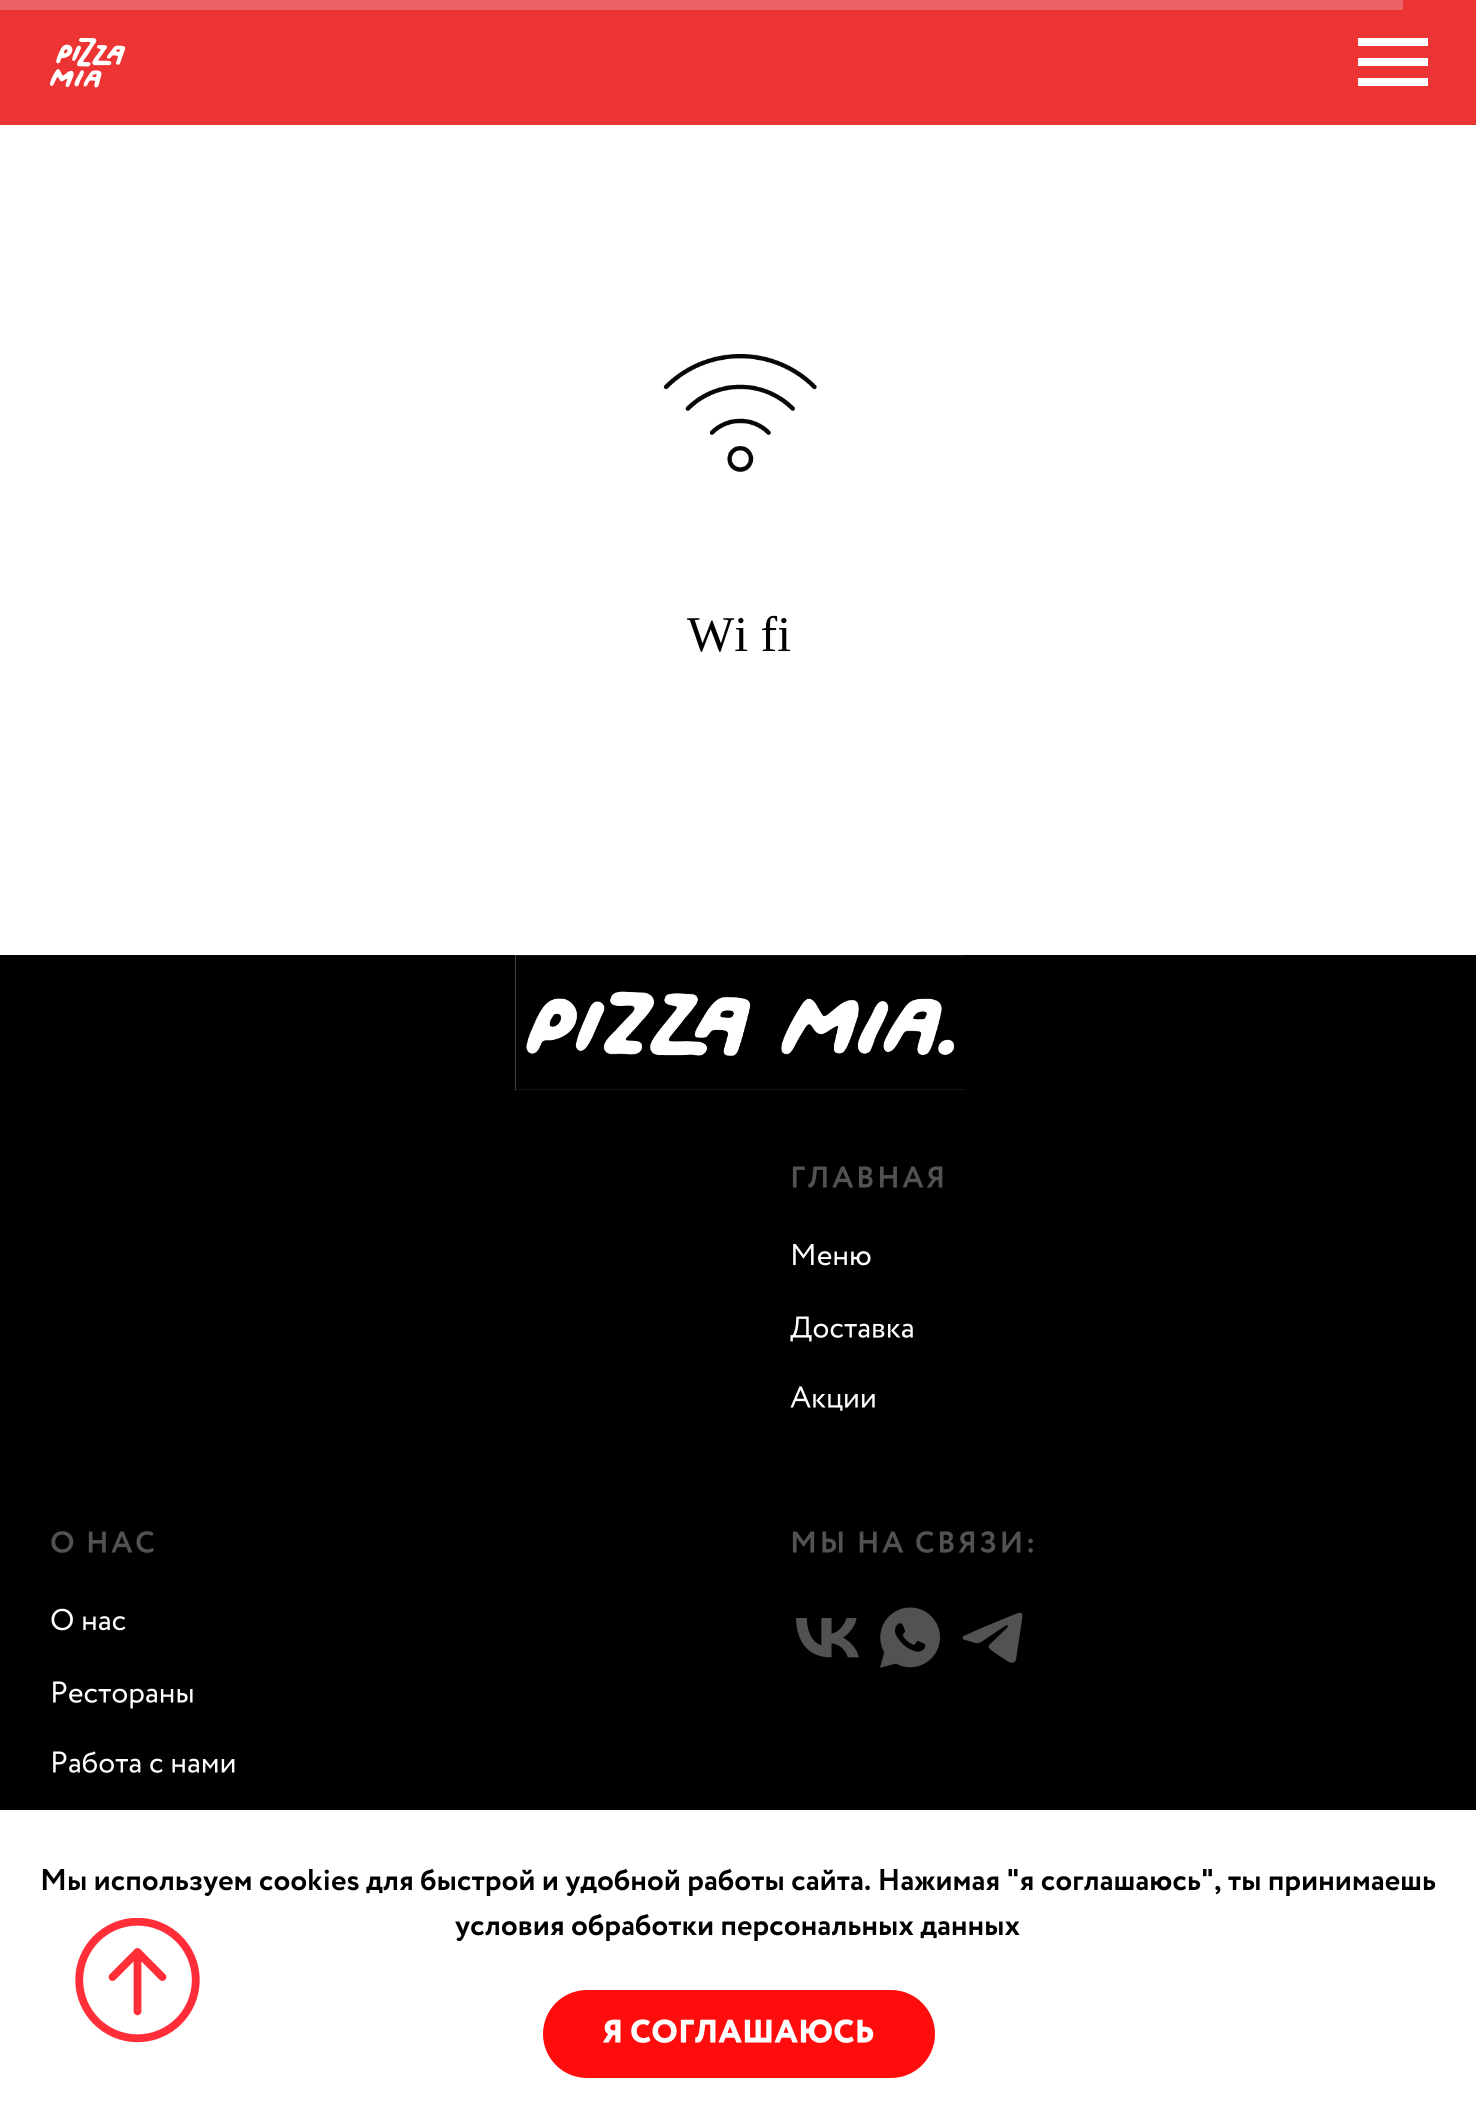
#include <cairo.h>
#include <math.h>
#include <stddef.h>


static void set_color(cairo_t *cr, unsigned color) {
    cairo_set_source_rgb(cr, (color >> 16) / 255.0, (color >> 8 & 255) / 255.0, (color & 255) / 255.0);
}

static void draw_text(cairo_t *cr, double x, double y, const char *s, const char *family, double size, int italic, int bold, unsigned color) {
    cairo_select_font_face(cr, family, italic ? CAIRO_FONT_SLANT_ITALIC : CAIRO_FONT_SLANT_NORMAL,
        bold ? CAIRO_FONT_WEIGHT_BOLD : CAIRO_FONT_WEIGHT_NORMAL);
    cairo_set_font_size(cr, size);
    set_color(cr, color);
    cairo_move_to(cr, x, y);
    cairo_show_text(cr, s);
}

static void fill_rect(cairo_t *cr, double x, double y, double w, double h, unsigned color) {
    set_color(cr, color);
    cairo_rectangle(cr, x, y, w, h);
    cairo_fill(cr);
}

static void rounded_rect(cairo_t *cr, double x, double y, double w, double h, double r) {
    cairo_new_sub_path(cr);
    cairo_arc(cr, x + w - r, y + h - r, r, 0, M_PI / 2);
    cairo_arc(cr, x + r, y + h - r, r, M_PI / 2, M_PI);
    cairo_arc(cr, x + r, y + r, r, M_PI, 1.5 * M_PI);
    cairo_arc(cr, x + w - r, y + r, r, 1.5 * M_PI, 2 * M_PI);
    cairo_close_path(cr);
}

static void draw_shadow(cairo_t *cr, double x, double y, double w, double h, double r, double blur, double alpha) {
    cairo_push_group_with_content(cr, CAIRO_CONTENT_ALPHA);
    cairo_set_operator(cr, CAIRO_OPERATOR_SOURCE);
    for (int i = 15; i >= -15 && fmin(w, h) + blur * i / 3 > 0; i -= 2) {
        double e = blur * i / 6;
        cairo_set_source_rgba(cr, 0, 0, 0, alpha * erfc((i - 1) / 8.5) / 2);
        rounded_rect(cr, x - e, y - e, w + 2 * e, h + 2 * e, fmax(0, fmin(r + e + blur * .6, fmin(w, h) / 2 + e)));
        cairo_fill(cr);
    }
    cairo_pattern_t *soft = cairo_pop_group(cr);
    cairo_mask(cr, soft);
    cairo_pattern_destroy(soft);
}

static void draw_image(cairo_t *cr, const char *path, double x, double y, double w, double h) {
    cairo_surface_t *image = cairo_image_surface_create_from_png(path);
    cairo_save(cr);
    cairo_set_source_surface(cr, image, x, y);
    cairo_rectangle(cr, x, y, w, h);
    cairo_fill(cr);
    cairo_restore(cr);
    cairo_surface_destroy(image);
}

int main(void) {
    cairo_surface_t *surface = cairo_image_surface_create(CAIRO_FORMAT_RGB24, 1476, 2127);
    cairo_t *cr = cairo_create(surface);
    cairo_font_options_t *options = cairo_font_options_create();
    cairo_font_options_set_hint_metrics(options, CAIRO_HINT_METRICS_OFF);
    cairo_font_options_set_hint_style(options, CAIRO_HINT_STYLE_NONE);
    cairo_set_font_options(cr, options);
    cairo_set_miter_limit(cr, 4);
    set_color(cr, 0xFFFFFF);
    cairo_paint(cr);
    fill_rect(cr, 0, 0, 1476, 125, 0xED3434);
    fill_rect(cr, 0, 0, 1403, 10, 0xED6267);
    fill_rect(cr, 0, 955, 1476, 855, 0x000000);
    draw_image(cr, "assets/img1.png", 515, 955, 450, 135);
    draw_image(cr, "assets/img2.png", 792, 1166, 151, 22);
    draw_image(cr, "assets/img3.png", 793, 1244, 78, 22);
    draw_image(cr, "assets/img4.png", 790, 1316, 123, 26);
    draw_image(cr, "assets/img5.png", 790, 1386, 85, 25);
    draw_image(cr, "assets/img6.png", 51, 1531, 103, 22);
    draw_image(cr, "assets/img7.png", 51, 1608, 75, 23);
    draw_image(cr, "assets/img8.png", 53, 1681, 140, 28);
    draw_image(cr, "assets/img9.png", 53, 1751, 182, 22);
    draw_image(cr, "assets/img10.png", 792, 1531, 241, 22);
    draw_image(cr, "assets/img11.png", 796, 1618, 63, 40);
    draw_image(cr, "assets/img12.png", 880, 1607, 60, 61);
    draw_image(cr, "assets/img13.png", 962, 1612, 61, 51);
    set_color(cr, 0x000000);
    draw_shadow(cr, 0, 1810, 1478, 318, 0, 25, 0.3);
    fill_rect(cr, 0, 1810, 1476, 317, 0xFFFFFF);
    draw_image(cr, "assets/img14.png", 42, 1868, 1394, 28);
    draw_image(cr, "assets/img15.png", 455, 1913, 565, 28);
    set_color(cr, 0xFF0C0C);
    rounded_rect(cr, 543, 1990, 392, 88, 44);
    cairo_fill(cr);
    draw_image(cr, "assets/img16.png", 602, 2019, 272, 24);
    draw_image(cr, "assets/img17.png", 75, 1918, 125, 125);
    draw_image(cr, "assets/img18.png", 50, 38, 75, 50);
    fill_rect(cr, 1358, 38, 70, 8, 0xFFFFFF);
    fill_rect(cr, 1358, 58, 70, 8, 0xFFFFFF);
    fill_rect(cr, 1358, 78, 70, 8, 0xFFFFFF);
    draw_image(cr, "assets/img19.png", 663, 354, 154, 118);
    draw_text(cr, 687, 651, "Wi fi", "Liberation Serif", 50, 0, 0, 0x000000);
    cairo_surface_write_to_png(surface, "output.png");
    cairo_font_options_destroy(options);
    cairo_destroy(cr);
    cairo_surface_destroy(surface);
    return 0;
}
